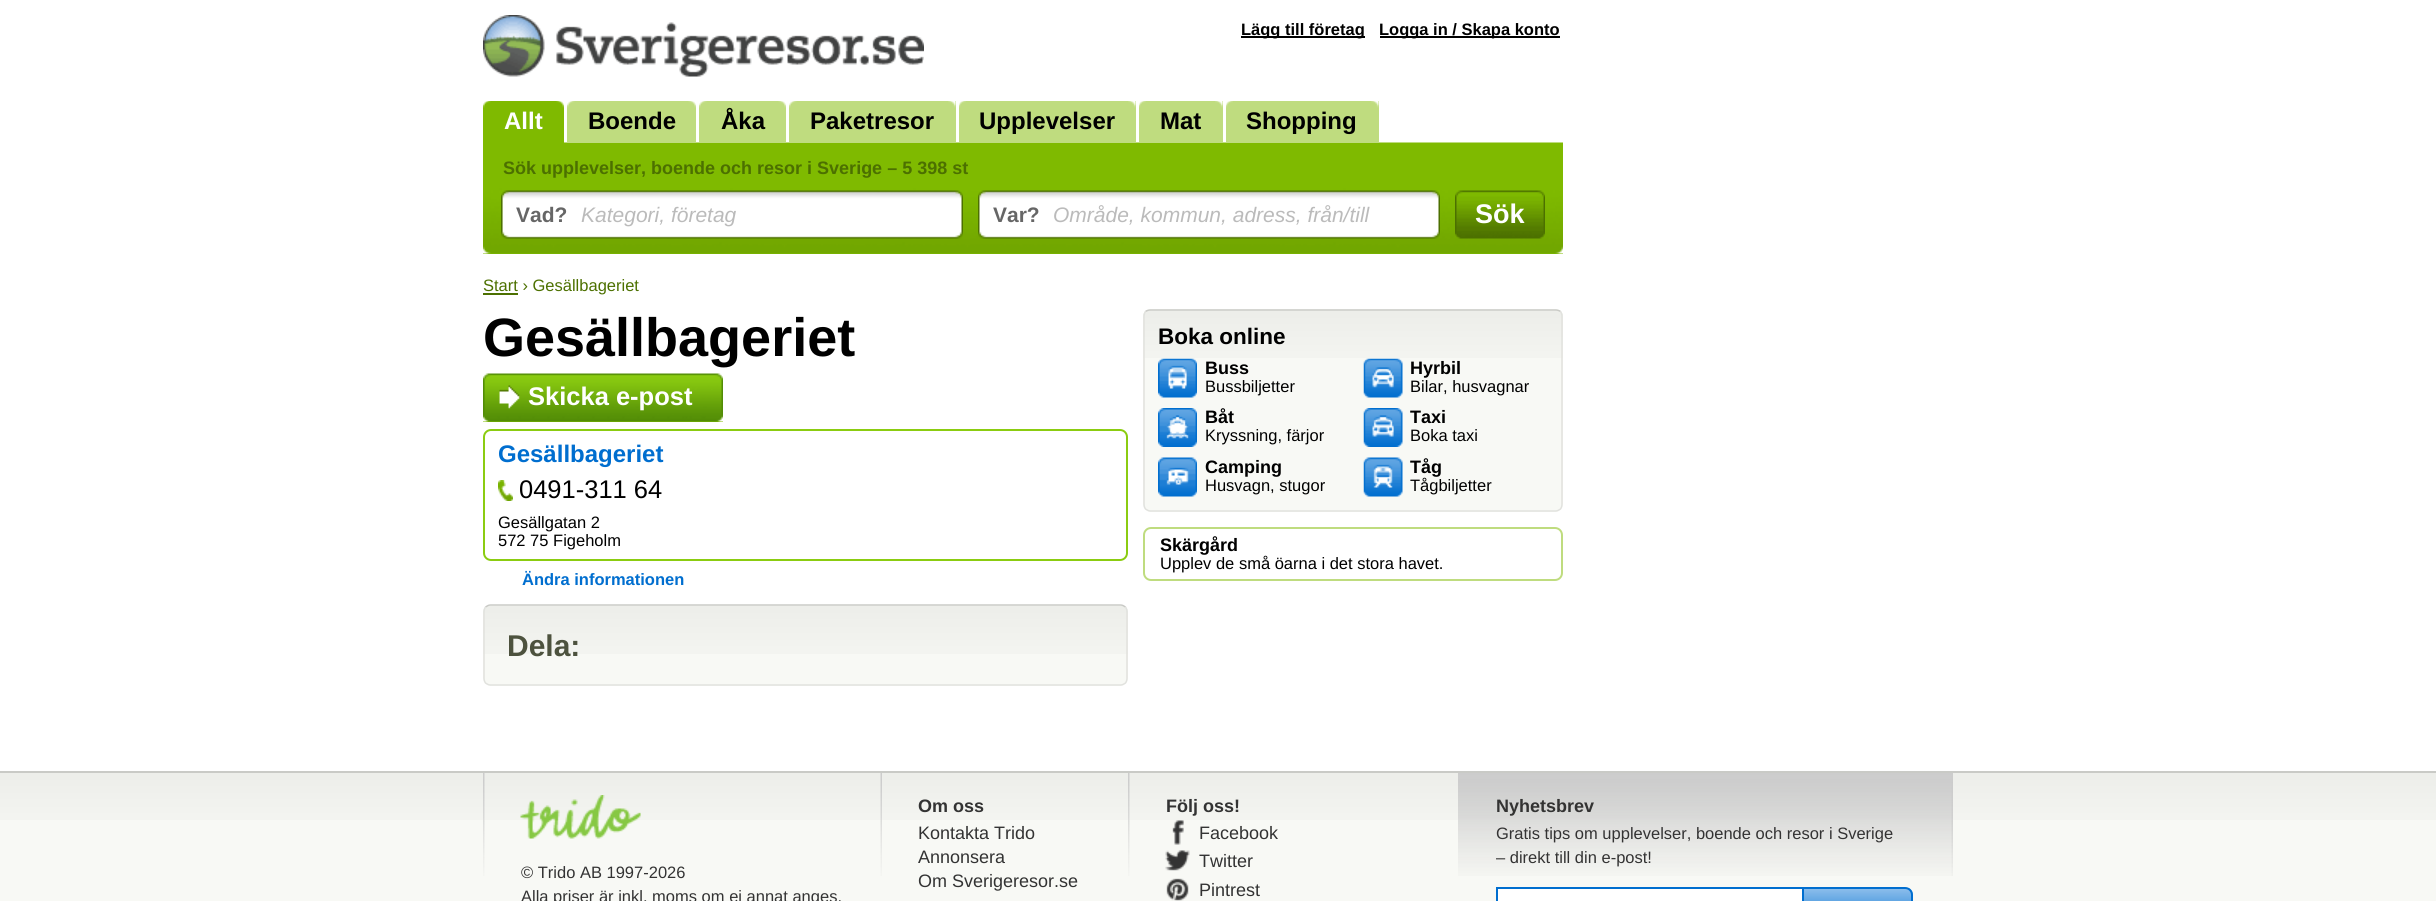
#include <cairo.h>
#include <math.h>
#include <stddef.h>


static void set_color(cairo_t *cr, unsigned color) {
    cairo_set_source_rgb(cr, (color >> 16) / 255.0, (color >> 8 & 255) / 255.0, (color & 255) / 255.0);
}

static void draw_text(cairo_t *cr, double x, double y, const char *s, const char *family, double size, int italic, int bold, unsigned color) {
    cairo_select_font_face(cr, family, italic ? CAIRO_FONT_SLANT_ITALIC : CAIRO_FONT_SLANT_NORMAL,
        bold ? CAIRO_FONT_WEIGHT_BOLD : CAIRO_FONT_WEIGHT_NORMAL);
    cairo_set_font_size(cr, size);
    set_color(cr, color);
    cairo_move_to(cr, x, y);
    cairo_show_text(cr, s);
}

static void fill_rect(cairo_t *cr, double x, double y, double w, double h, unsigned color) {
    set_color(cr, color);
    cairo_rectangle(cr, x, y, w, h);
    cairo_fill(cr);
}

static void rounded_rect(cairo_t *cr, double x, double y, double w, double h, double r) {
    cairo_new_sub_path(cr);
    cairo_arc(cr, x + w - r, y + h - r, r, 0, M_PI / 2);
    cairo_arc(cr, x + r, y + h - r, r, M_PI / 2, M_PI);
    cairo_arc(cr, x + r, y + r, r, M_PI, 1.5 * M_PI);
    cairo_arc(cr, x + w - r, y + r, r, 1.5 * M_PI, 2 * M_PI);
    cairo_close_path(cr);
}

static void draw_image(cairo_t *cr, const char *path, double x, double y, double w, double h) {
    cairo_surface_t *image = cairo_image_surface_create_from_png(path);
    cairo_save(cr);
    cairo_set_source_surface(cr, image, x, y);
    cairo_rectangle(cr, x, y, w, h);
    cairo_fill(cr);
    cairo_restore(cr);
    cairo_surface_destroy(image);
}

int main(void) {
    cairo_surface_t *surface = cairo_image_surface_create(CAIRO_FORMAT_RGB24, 2436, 901);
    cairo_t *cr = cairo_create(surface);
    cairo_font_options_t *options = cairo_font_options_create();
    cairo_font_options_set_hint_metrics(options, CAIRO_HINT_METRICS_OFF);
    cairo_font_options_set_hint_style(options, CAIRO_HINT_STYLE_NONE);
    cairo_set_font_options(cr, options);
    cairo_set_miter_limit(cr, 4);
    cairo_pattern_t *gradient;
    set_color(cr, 0xFFFFFF);
    cairo_paint(cr);
    draw_image(cr, "assets/img1.png", 483, 15, 441, 62);
    fill_rect(cr, 1241, 36, 124, 2, 0x000000);
    draw_text(cr, 1241, 35, "Lägg till företag", "Liberation Sans", 16.5, 0, 1, 0x000000);
    fill_rect(cr, 1380, 36, 180, 2, 0x000000);
    draw_text(cr, 1379, 35, "Logga in / Skapa konto", "Liberation Sans", 16.5, 0, 1, 0x000000);
    fill_rect(cr, 483, 253, 1080, 1, 0x7FBA00);
    draw_image(cr, "assets/img12.png", 483, 142, 1080, 112);
    fill_rect(cr, 483, 101, 81, 42, 0x7FBA00);
    draw_image(cr, "assets/img2.png", 483, 101, 8, 7);
    draw_image(cr, "assets/img3.png", 556, 101, 8, 7);
    draw_text(cr, 504, 129, "Allt", "Liberation Sans", 24, 0, 1, 0xFFFFFF);
    fill_rect(cr, 567, 101, 129, 41, 0xBFDC7F);
    draw_image(cr, "assets/img4.png", 567, 101, 8, 7);
    draw_image(cr, "assets/img5.png", 688, 101, 8, 7);
    draw_text(cr, 588, 129, "Boende", "Liberation Sans", 24, 0, 1, 0x000000);
    fill_rect(cr, 699, 101, 87, 41, 0xBFDC7F);
    draw_image(cr, "assets/img6.png", 699, 101, 8, 7);
    draw_image(cr, "assets/img7.png", 778, 101, 8, 7);
    draw_text(cr, 721, 129, "Åka", "Liberation Sans", 24, 0, 1, 0x000000);
    fill_rect(cr, 789, 101, 167, 41, 0xBFDC7F);
    draw_image(cr, "assets/img6.png", 789, 101, 8, 7);
    draw_image(cr, "assets/img8.png", 948, 101, 8, 7);
    draw_text(cr, 810, 129, "Paketresor", "Liberation Sans", 24, 0, 1, 0x000000);
    fill_rect(cr, 959, 101, 177, 41, 0xBFDC7F);
    draw_image(cr, "assets/img9.png", 959, 101, 7, 7);
    draw_image(cr, "assets/img10.png", 1128, 101, 8, 7);
    draw_text(cr, 979, 129, "Upplevelser", "Liberation Sans", 24, 0, 1, 0x000000);
    fill_rect(cr, 1139, 101, 84, 41, 0xBFDC7F);
    draw_image(cr, "assets/img11.png", 1139, 101, 7, 7);
    draw_image(cr, "assets/img10.png", 1215, 101, 8, 7);
    draw_text(cr, 1160, 129, "Mat", "Liberation Sans", 24, 0, 1, 0x000000);
    fill_rect(cr, 1226, 101, 153, 41, 0xBFDC7F);
    draw_image(cr, "assets/img9.png", 1226, 101, 7, 7);
    draw_image(cr, "assets/img8.png", 1371, 101, 8, 7);
    draw_text(cr, 1246, 129, "Shopping", "Liberation Sans", 24, 0, 1, 0x000000);
    draw_text(cr, 503, 174, "Sök upplevelser, boende och resor i Sverige – 5 398 st", "Liberation Sans", 18, 0, 1, 0x4C7000);
    draw_image(cr, "assets/img13.png", 501, 190, 462, 49);
    draw_text(cr, 516, 222, "Vad?", "Liberation Sans", 21, 0, 1, 0x666666);
    draw_text(cr, 581, 222, "Kategori, företag", "Liberation Sans", 21, 1, 0, 0xBBBBBB);
    draw_image(cr, "assets/img14.png", 978, 190, 462, 49);
    draw_text(cr, 993, 222, "Var?", "Liberation Sans", 21, 0, 1, 0x666666);
    draw_text(cr, 1053, 222, "Område, kommun, adress, från/till", "Liberation Sans", 21, 1, 0, 0xBBBBBB);
    draw_image(cr, "assets/img15.png", 1455, 190, 90, 49);
    draw_text(cr, 1475, 223, "Sök", "Liberation Sans", 27, 0, 1, 0xFFFFFF);
    fill_rect(cr, 483, 293, 35, 2, 0x4C7000);
    draw_text(cr, 483, 291, "Start › Gesällbageriet", "Liberation Sans", 16.5, 0, 0, 0x4C7000);
    draw_text(cr, 483, 356, "Gesällbageriet", "Liberation Sans", 54, 0, 1, 0x000000);
    fill_rect(cr, 483, 421, 240, 1, 0x7FBA00);
    draw_image(cr, "assets/img16.png", 483, 373, 240, 49);
    draw_text(cr, 528, 405, "Skicka e-post", "Liberation Sans", 25.5, 0, 1, 0xFFFFFF);
    rounded_rect(cr, 484, 430, 643, 130, 7);
    set_color(cr, 0x8BCC11);
    cairo_stroke(cr);
    draw_text(cr, 498, 462, "Gesällbageriet", "Liberation Sans", 24, 0, 1, 0x006ECF);
    draw_image(cr, "assets/img17.png", 498, 480, 15, 21);
    draw_text(cr, 519, 498, "0491-311 64", "Liberation Sans", 25.5, 0, 0, 0x000000);
    draw_text(cr, 498, 528, "Gesällgatan 2", "Liberation Sans", 16.5, 0, 0, 0x000000);
    draw_text(cr, 498, 546, "572 75 Figeholm", "Liberation Sans", 16.5, 0, 0, 0x000000);
    draw_text(cr, 522, 585, "Ändra informationen", "Liberation Sans", 16.5, 0, 1, 0x006ECF);
    set_color(cr, 0xF8F9F5);
    rounded_rect(cr, 483, 605, 645, 81, 8);
    cairo_fill(cr);
    draw_image(cr, "assets/img18.png", 483, 606, 645, 48);
    cairo_new_path(cr);
    cairo_move_to(cr, 485.5, 607);
    cairo_curve_to(cr, 487, 606, 488.5, 605, 490.5, 605);
    cairo_line_to(cr, 1120.5, 605);
    cairo_curve_to(cr, 1122.5, 605, 1124, 606, 1125.5, 607);
    set_color(cr, 0xC9CAC6);
    cairo_set_line_width(cr, 1.5);
    cairo_stroke(cr);
    cairo_new_path(cr);
    cairo_move_to(cr, 1125.5, 607);
    cairo_curve_to(cr, 1126.5, 608.5, 1127, 610, 1127, 612);
    cairo_line_to(cr, 1127, 678);
    cairo_curve_to(cr, 1127, 680, 1126.5, 681.5, 1125.5, 683);
    cairo_curve_to(cr, 1124, 684, 1122.5, 685, 1120.5, 685);
    cairo_line_to(cr, 490.5, 685);
    cairo_curve_to(cr, 488.5, 685, 487, 684, 485.5, 683);
    cairo_curve_to(cr, 484.5, 681.5, 484, 680, 484, 678);
    cairo_line_to(cr, 484, 612);
    cairo_curve_to(cr, 484, 610, 484.5, 608.5, 485.5, 607);
    set_color(cr, 0xE1E2DE);
    cairo_stroke(cr);
    draw_text(cr, 507, 656, "Dela:", "Liberation Sans", 30, 0, 1, 0x4D523E);
    set_color(cr, 0xF8F9F5);
    rounded_rect(cr, 1143, 309, 420, 203, 8);
    cairo_fill(cr);
    draw_image(cr, "assets/img19.png", 1143, 310, 420, 48);
    cairo_new_path(cr);
    cairo_move_to(cr, 1145.5, 311.5);
    cairo_curve_to(cr, 1147, 310.5, 1148.5, 310, 1150.5, 310);
    cairo_line_to(cr, 1555.5, 310);
    cairo_curve_to(cr, 1557.5, 310, 1559, 310.5, 1560.5, 311.5);
    set_color(cr, 0xC9CAC6);
    cairo_stroke(cr);
    cairo_new_path(cr);
    cairo_move_to(cr, 1560.5, 311.5);
    cairo_curve_to(cr, 1561.5, 313, 1562, 314.5, 1562, 316.5);
    cairo_line_to(cr, 1562, 504);
    cairo_curve_to(cr, 1562, 506, 1561.5, 507.5, 1560.5, 509);
    cairo_curve_to(cr, 1559, 510, 1557.5, 511, 1555.5, 511);
    cairo_line_to(cr, 1150.5, 511);
    cairo_curve_to(cr, 1148.5, 511, 1147, 510, 1145.5, 509);
    cairo_curve_to(cr, 1144.5, 507.5, 1144, 506, 1144, 504);
    cairo_line_to(cr, 1144, 316.5);
    cairo_curve_to(cr, 1144, 314.5, 1144.5, 313, 1145.5, 311.5);
    set_color(cr, 0xE1E2DE);
    cairo_stroke(cr);
    draw_text(cr, 1158, 344, "Boka online", "Liberation Sans", 22.5, 0, 1, 0x000000);
    draw_image(cr, "assets/img20.png", 1158, 358, 39, 40);
    draw_text(cr, 1205, 374, "Buss", "Liberation Sans", 18, 0, 1, 0x000000);
    draw_text(cr, 1205, 392, "Bussbiljetter", "Liberation Sans", 16.5, 0, 0, 0x000000);
    draw_image(cr, "assets/img21.png", 1158, 408, 39, 39);
    draw_text(cr, 1205, 423, "Båt", "Liberation Sans", 18, 0, 1, 0x000000);
    draw_text(cr, 1205, 441, "Kryssning, färjor", "Liberation Sans", 16.5, 0, 0, 0x000000);
    draw_image(cr, "assets/img22.png", 1158, 457, 39, 40);
    draw_text(cr, 1205, 473, "Camping", "Liberation Sans", 18, 0, 1, 0x000000);
    draw_text(cr, 1205, 491, "Husvagn, stugor", "Liberation Sans", 16.5, 0, 0, 0x000000);
    draw_image(cr, "assets/img23.png", 1363, 358, 40, 40);
    draw_text(cr, 1410, 374, "Hyrbil", "Liberation Sans", 18, 0, 1, 0x000000);
    draw_text(cr, 1410, 392, "Bilar, husvagnar", "Liberation Sans", 16.5, 0, 0, 0x000000);
    draw_image(cr, "assets/img24.png", 1363, 408, 40, 39);
    draw_text(cr, 1410, 423, "Taxi", "Liberation Sans", 18, 0, 1, 0x000000);
    draw_text(cr, 1410, 441, "Boka taxi", "Liberation Sans", 16.5, 0, 0, 0x000000);
    draw_image(cr, "assets/img25.png", 1363, 457, 40, 40);
    draw_text(cr, 1410, 473, "Tåg", "Liberation Sans", 18, 0, 1, 0x000000);
    draw_text(cr, 1410, 491, "Tågbiljetter", "Liberation Sans", 16.5, 0, 0, 0x000000);
    rounded_rect(cr, 1144, 528, 418, 52, 7);
    set_color(cr, 0xBFDC7F);
    cairo_set_line_width(cr, 2);
    cairo_stroke(cr);
    draw_text(cr, 1160, 551, "Skärgård", "Liberation Sans", 18, 0, 1, 0x000000);
    draw_text(cr, 1160, 569, "Upplev de små öarna i det stora havet.", "Liberation Sans", 16.5, 0, 0, 0x000000);
    fill_rect(cr, 0, 820, 2436, 81, 0xF8F9F5);
    draw_image(cr, "assets/img26.png", 0, 773, 2436, 47);
    fill_rect(cr, 0, 771, 2436, 2, 0xC9CAC6);
    draw_image(cr, "assets/img27.png", 1951, 774, 2, 102);
    draw_image(cr, "assets/img28.png", 483, 773, 2, 103);
    draw_image(cr, "assets/img29.png", 520, 795, 121, 44);
    draw_text(cr, 521, 878, "© Trido AB 1997-2026", "Liberation Sans", 16.5, 0, 0, 0x333333);
    draw_text(cr, 521, 902, "Alla priser är inkl. moms om ej annat anges.", "Liberation Sans", 16.5, 0, 0, 0x333333);
    draw_image(cr, "assets/img30.png", 880, 773, 2, 103);
    draw_text(cr, 918, 812, "Om oss", "Liberation Sans", 18, 0, 1, 0x333333);
    draw_text(cr, 918, 839, "Kontakta Trido", "Liberation Sans", 18, 0, 0, 0x333333);
    draw_text(cr, 918, 863, "Annonsera", "Liberation Sans", 18, 0, 0, 0x333333);
    draw_text(cr, 918, 887, "Om Sverigeresor.se", "Liberation Sans", 18, 0, 0, 0x333333);
    draw_image(cr, "assets/img28.png", 1128, 773, 2, 103);
    draw_text(cr, 1166, 812, "Följ oss!", "Liberation Sans", 18, 0, 1, 0x333333);
    draw_image(cr, "assets/img31.png", 1172, 820, 12, 25);
    draw_text(cr, 1199, 839, "Facebook", "Liberation Sans", 18, 0, 0, 0x333333);
    draw_image(cr, "assets/img32.png", 1165, 850, 25, 21);
    draw_text(cr, 1199, 867, "Twitter", "Liberation Sans", 18, 0, 0, 0x333333);
    draw_image(cr, "assets/img33.png", 1166, 878, 23, 23);
    draw_text(cr, 1199, 896, "Pintrest", "Liberation Sans", 18, 0, 0, 0x333333);
    draw_image(cr, "assets/img34.png", 1458, 773, 495, 103);
    draw_text(cr, 1496, 812, "Nyhetsbrev", "Liberation Sans", 18, 0, 1, 0x333333);
    draw_text(cr, 1496, 839, "Gratis tips om upplevelser, boende och resor i Sverige", "Liberation Sans", 16.5, 0, 0, 0x333333);
    draw_text(cr, 1496, 863, "– direkt till din e-post!", "Liberation Sans", 16.5, 0, 0, 0x333333);
    fill_rect(cr, 1498, 889, 304, 12, 0xFFFFFF);
    cairo_rectangle(cr, 1497, 888, 307, 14);
    set_color(cr, 0x006ECF);
    cairo_stroke(cr);
    cairo_save(cr);
    cairo_new_path(cr);
    cairo_move_to(cr, 1802, 887);
    cairo_line_to(cr, 1905, 887);
    cairo_curve_to(cr, 1909.5, 887, 1913, 890.5, 1913, 895);
    cairo_line_to(cr, 1913, 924);
    cairo_curve_to(cr, 1913, 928.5, 1909.5, 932, 1905, 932);
    cairo_line_to(cr, 1802, 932);
    cairo_close_path(cr);
    cairo_clip(cr);
    gradient = cairo_pattern_create_linear(1857, 888, 1857, 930);
    cairo_pattern_add_color_stop_rgba(gradient, 0, 0.557, 0.749, 0.925, 1);
    cairo_pattern_add_color_stop_rgba(gradient, 1, 0, 0.431, 0.812, 1);
    cairo_set_source(cr, gradient);
    cairo_pattern_destroy(gradient);
    cairo_rectangle(cr, 1804, 888, 109, 13);
    cairo_fill(cr);
    cairo_restore(cr);
    cairo_new_path(cr);
    cairo_move_to(cr, 1803, 888);
    cairo_line_to(cr, 1905, 888);
    cairo_curve_to(cr, 1909, 888, 1912, 891, 1912, 895);
    cairo_line_to(cr, 1912, 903);
    cairo_curve_to(cr, 1912, 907, 1909, 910, 1905, 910);
    cairo_line_to(cr, 1803, 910);
    cairo_close_path(cr);
    cairo_stroke(cr);
    cairo_surface_write_to_png(surface, "output.png");
    cairo_font_options_destroy(options);
    cairo_destroy(cr);
    cairo_surface_destroy(surface);
    return 0;
}
